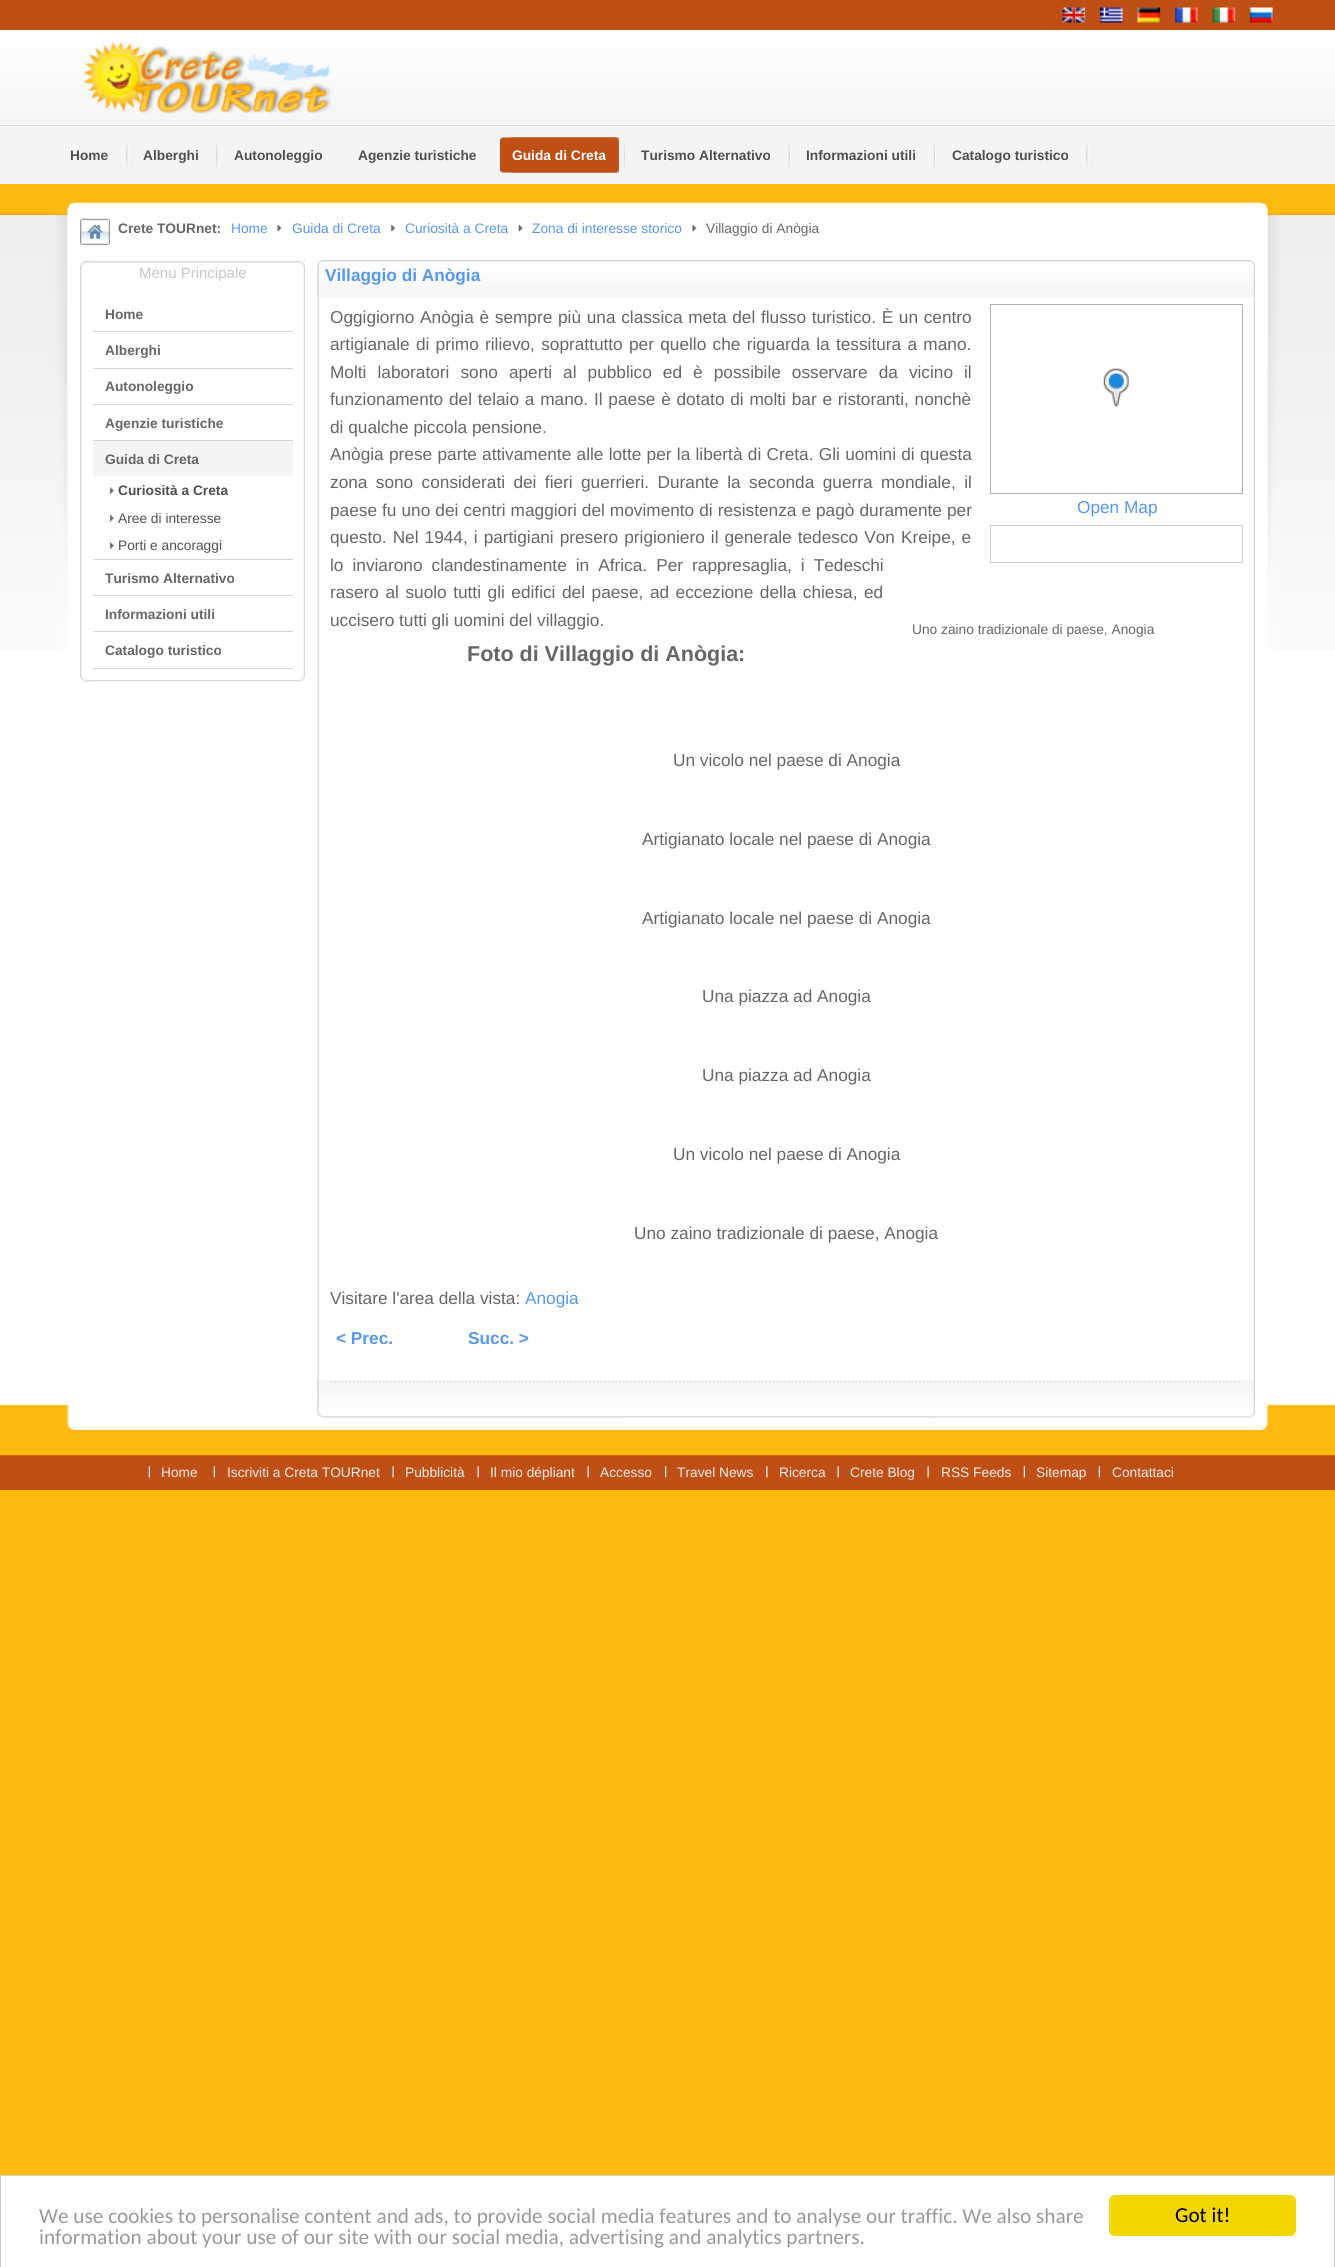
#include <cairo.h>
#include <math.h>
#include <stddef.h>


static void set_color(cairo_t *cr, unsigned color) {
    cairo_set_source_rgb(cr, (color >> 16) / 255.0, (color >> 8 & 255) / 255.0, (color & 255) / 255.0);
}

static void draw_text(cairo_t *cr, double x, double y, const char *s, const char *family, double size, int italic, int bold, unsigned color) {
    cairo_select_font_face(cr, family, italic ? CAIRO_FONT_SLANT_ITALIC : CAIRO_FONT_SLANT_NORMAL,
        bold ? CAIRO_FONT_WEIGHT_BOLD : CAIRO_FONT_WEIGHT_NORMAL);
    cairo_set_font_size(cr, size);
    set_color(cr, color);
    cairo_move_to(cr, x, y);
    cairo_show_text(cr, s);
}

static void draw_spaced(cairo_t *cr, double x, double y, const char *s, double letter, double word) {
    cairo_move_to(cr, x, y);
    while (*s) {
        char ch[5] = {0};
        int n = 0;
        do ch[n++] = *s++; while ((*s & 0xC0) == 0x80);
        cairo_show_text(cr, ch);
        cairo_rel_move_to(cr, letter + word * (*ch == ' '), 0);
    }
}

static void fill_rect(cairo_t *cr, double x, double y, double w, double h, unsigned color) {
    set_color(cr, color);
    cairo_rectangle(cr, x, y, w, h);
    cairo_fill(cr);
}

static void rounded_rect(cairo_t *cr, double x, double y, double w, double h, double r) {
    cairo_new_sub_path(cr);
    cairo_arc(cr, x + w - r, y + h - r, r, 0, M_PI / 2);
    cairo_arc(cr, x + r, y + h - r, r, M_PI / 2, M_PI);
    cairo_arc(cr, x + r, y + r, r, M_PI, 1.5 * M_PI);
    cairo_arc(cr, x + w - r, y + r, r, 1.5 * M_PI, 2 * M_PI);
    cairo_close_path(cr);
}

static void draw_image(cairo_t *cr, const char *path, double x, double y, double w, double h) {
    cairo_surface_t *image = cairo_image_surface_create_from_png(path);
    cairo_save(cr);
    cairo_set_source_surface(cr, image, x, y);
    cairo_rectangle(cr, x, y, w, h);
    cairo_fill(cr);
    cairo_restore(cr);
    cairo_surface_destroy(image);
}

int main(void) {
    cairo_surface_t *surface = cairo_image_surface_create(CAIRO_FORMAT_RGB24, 1335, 2267);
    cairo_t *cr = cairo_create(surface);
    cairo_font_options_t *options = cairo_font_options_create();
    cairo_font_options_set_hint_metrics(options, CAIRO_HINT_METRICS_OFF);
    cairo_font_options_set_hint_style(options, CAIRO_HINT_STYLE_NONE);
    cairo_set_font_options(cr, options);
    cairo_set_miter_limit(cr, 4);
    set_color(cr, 0xFFB911);
    cairo_paint(cr);
    fill_rect(cr, 0, 0, 1335, 30, 0xBF4F14);
    draw_image(cr, "assets/img1.png", 1062, 7, 24, 16);
    draw_image(cr, "assets/img2.png", 1099, 7, 24, 16);
    draw_image(cr, "assets/img3.png", 1137, 7, 24, 16);
    draw_image(cr, "assets/img4.png", 1174, 7, 24, 16);
    draw_image(cr, "assets/img5.png", 1212, 7, 24, 16);
    draw_image(cr, "assets/img6.png", 1249, 7, 24, 16);
    draw_image(cr, "assets/img7.png", 0, 30, 1335, 94);
    fill_rect(cr, 0, 124, 1335, 1, 0xFFFFFF);
    draw_image(cr, "assets/img8.png", 82, 41, 250, 73);
    fill_rect(cr, 0, 126, 1335, 58, 0xF4F4F4);
    fill_rect(cr, 0, 125, 1335, 1, 0xD5D5D5);
    draw_image(cr, "assets/img9.png", 126, 142, 3, 28);
    draw_text(cr, 70, 160, "Home", "Liberation Sans", 13.75, 0, 1, 0x4F4F4F);
    draw_image(cr, "assets/img9.png", 216, 142, 3, 28);
    draw_text(cr, 143, 160, "Alberghi", "Liberation Sans", 13.75, 0, 1, 0x4F4F4F);
    draw_text(cr, 234, 160, "Αutonoleggio", "Liberation Sans", 13.75, 0, 1, 0x4F4F4F);
    draw_text(cr, 358, 160, "Agenzie turistiche", "Liberation Sans", 13.75, 0, 1, 0x4F4F4F);
    draw_image(cr, "assets/img10.png", 623, 141, 3, 29);
    draw_image(cr, "assets/img11.png", 500, 137, 119, 36);
    draw_image(cr, "assets/img12.png", 511, 137, 108, 36);
    draw_text(cr, 512, 160, "Guida di Creta", "Liberation Sans", 13.75, 0, 1, 0xFFFFFF);
    draw_image(cr, "assets/img10.png", 788, 141, 3, 29);
    draw_text(cr, 641, 160, "Turismo Alternativo", "Liberation Sans", 13.75, 0, 1, 0x4F4F4F);
    draw_image(cr, "assets/img10.png", 933, 141, 3, 29);
    draw_text(cr, 806, 160, "Informazioni utili", "Liberation Sans", 13.75, 0, 1, 0x4F4F4F);
    draw_image(cr, "assets/img9.png", 1086, 142, 3, 28);
    draw_text(cr, 952, 160, "Catalogo turistico", "Liberation Sans", 13.75, 0, 1, 0x4F4F4F);
    fill_rect(cr, 0, 650, 1335, 756, 0xFFFFFF);
    draw_image(cr, "assets/img13.png", 0, 203, 1335, 447);
    draw_image(cr, "assets/img14.png", 0, 1404, 1335, 26);
    draw_image(cr, "assets/img15.png", 55, 202, 1225, 448);
    draw_image(cr, "assets/img16.png", 67, 1404, 1201, 26);
    draw_image(cr, "assets/img17.png", 80, 218, 30, 27);
    draw_text(cr, 118, 233, "Crete TOURnet:", "Liberation Sans", 13.75, 0, 1, 0x666666);
    draw_text(cr, 231, 233, "Home", "Liberation Sans", 13.75, 0, 0, 0x5599EE);
    draw_image(cr, "assets/img18.png", 277, 225, 5, 7);
    draw_text(cr, 292, 233, "Guida di Creta", "Liberation Sans", 13.75, 0, 0, 0x5599EE);
    draw_image(cr, "assets/img19.png", 391, 225, 4, 7);
    draw_text(cr, 405, 233, "Curiosità a Creta", "Liberation Sans", 13.75, 0, 0, 0x5599EE);
    draw_image(cr, "assets/img20.png", 518, 225, 5, 7);
    draw_text(cr, 532, 233, "Zona di interesse storico", "Liberation Sans", 13.75, 0, 0, 0x5599EE);
    draw_image(cr, "assets/img18.png", 692, 225, 5, 7);
    draw_text(cr, 706, 233, "Villaggio di Anògia", "Liberation Sans", 13.75, 0, 0, 0x666666);
    draw_image(cr, "assets/img21.png", 80, 260, 225, 422);
    draw_image(cr, "assets/img22.png", 80, 261, 12, 421);
    draw_image(cr, "assets/img23.png", 80, 261, 225, 41);
    draw_image(cr, "assets/img24.png", 80, 261, 12, 40);
    draw_text(cr, 139, 278, "Menu Principale", "Liberation Sans", 15, 0, 0, 0xC6C6C6);
    fill_rect(cr, 93, 331, 200, 1, 0xD5D5D5);
    draw_text(cr, 105, 319, "Home", "Liberation Sans", 13.75, 0, 1, 0x666666);
    fill_rect(cr, 93, 368, 200, 1, 0xD5D5D5);
    draw_text(cr, 105, 355, "Alberghi", "Liberation Sans", 13.75, 0, 1, 0x666666);
    fill_rect(cr, 93, 404, 200, 1, 0xD5D5D5);
    draw_text(cr, 105, 391, "Αutonoleggio", "Liberation Sans", 13.75, 0, 1, 0x666666);
    fill_rect(cr, 93, 440, 200, 1, 0xD5D5D5);
    draw_text(cr, 105, 428, "Agenzie turistiche", "Liberation Sans", 13.75, 0, 1, 0x666666);
    fill_rect(cr, 93, 559, 200, 1, 0xD5D5D5);
    fill_rect(cr, 93, 441, 200, 35, 0xF4F4F4);
    draw_text(cr, 105, 464, "Guida di Creta", "Liberation Sans", 13.75, 0, 1, 0x666666);
    draw_image(cr, "assets/img25.png", 109, 487, 5, 7);
    draw_text(cr, 118, 495, "Curiosità a Creta", "Liberation Sans", 13.75, 0, 1, 0x4F4F4F);
    draw_image(cr, "assets/img26.png", 109, 514, 5, 8);
    draw_text(cr, 118, 523, "Aree di interesse", "Liberation Sans", 13.75, 0, 0, 0x4F4F4F);
    draw_image(cr, "assets/img25.png", 109, 542, 5, 7);
    draw_text(cr, 118, 550, "Porti e ancoraggi", "Liberation Sans", 13.75, 0, 0, 0x4F4F4F);
    fill_rect(cr, 93, 595, 200, 1, 0xD5D5D5);
    draw_text(cr, 105, 583, "Turismo Alternativo", "Liberation Sans", 13.75, 0, 1, 0x666666);
    fill_rect(cr, 93, 631, 200, 1, 0xD5D5D5);
    draw_text(cr, 105, 619, "Informazioni utili", "Liberation Sans", 13.75, 0, 1, 0x666666);
    fill_rect(cr, 93, 668, 200, 1, 0xD5D5D5);
    draw_text(cr, 105, 655, "Catalogo turistico", "Liberation Sans", 13.75, 0, 1, 0x666666);
    draw_image(cr, "assets/img27.png", 317, 260, 938, 1158);
    draw_image(cr, "assets/img28.png", 317, 260, 938, 38);
    draw_image(cr, "assets/img29.png", 317, 1380, 938, 38);
    draw_text(cr, 325, 281, "Villaggio di Anògia", "Liberation Sans", 17.25, 0, 1, 0x5599EE);
    cairo_select_font_face(cr, "Liberation Sans", CAIRO_FONT_SLANT_NORMAL, CAIRO_FONT_WEIGHT_NORMAL);
    set_color(cr, 0x666666);
    draw_spaced(cr, 330, 323, "Oggigiorno Anògia è sempre più una classica meta del flusso turistico. È un centro", 0, 0.9);
    draw_spaced(cr, 330, 350, "artigianale di primo rilievo, soprattutto per quello che riguarda la tessitura a mano.", 0, 1.5);
    draw_spaced(cr, 330, 378, "Molti laboratori sono aperti al pubblico ed è possibile osservare da vicino il", 0, 6.25);
    draw_spaced(cr, 330, 405, "funzionamento del telaio a mano. Il paese è dotato di molti bar e ristoranti, nonchè", 0, 1);
    draw_text(cr, 330, 433, "di qualche piccola pensione.", "Liberation Sans", 17.25, 0, 0, 0x666666);
    draw_spaced(cr, 330, 460, "Anògia prese parte attivamente alle lotte per la libertà di Creta. Gli uomini di questa", 0, 0.5);
    draw_spaced(cr, 330, 488, "zona sono considerati dei fieri guerrieri. Durante la seconda guerra mondiale, il", 0, 3.6);
    draw_spaced(cr, 330, 516, "paese fu uno dei centri maggiori del movimento di resistenza e pagò duramente per", 0, 0.25);
    draw_spaced(cr, 330, 543, "questo. Nel 1944, i partigiani presero prigioniero il generale tedesco Von Kreipe, e", 0, 1.25);
    draw_spaced(cr, 330, 571, "lo inviarono clandestinamente in Africa. Per rappresaglia, i Tedeschi", 0, 4.25);
    draw_spaced(cr, 330, 598, "rasero al suolo tutti gli edifici del paese, ad eccezione della chiesa, ed", 0, 1.75);
    draw_text(cr, 330, 626, "uccisero tutti gli uomini del villaggio.", "Liberation Sans", 17.25, 0, 0, 0x666666);
    cairo_rectangle(cr, 990.5, 304.5, 252, 189);
    set_color(cr, 0xAFAFAF);
    cairo_set_line_width(cr, 1);
    cairo_stroke(cr);
    draw_image(cr, "assets/img30.png", 1103, 368, 26, 39);
    draw_text(cr, 1077, 513, "Open Map", "Liberation Sans", 17.25, 0, 0, 0x5599EE);
    cairo_rectangle(cr, 990.5, 525.5, 252, 37);
    set_color(cr, 0xCCCCCC);
    cairo_stroke(cr);
    draw_text(cr, 912, 634, "Uno zaino tradizionale di paese, Anogia", "Liberation Sans", 13.75, 0, 0, 0x666666);
    draw_text(cr, 467, 661, "Foto di Villaggio di Anògia:", "Liberation Sans", 21.5, 0, 1, 0x666666);
    draw_text(cr, 673, 766, "Un vicolo nel paese di Anogia", "Liberation Sans", 17.25, 0, 0, 0x666666);
    draw_text(cr, 642, 845, "Artigianato locale nel paese di Anogia", "Liberation Sans", 17.25, 0, 0, 0x666666);
    draw_text(cr, 642, 924, "Artigianato locale nel paese di Anogia", "Liberation Sans", 17.25, 0, 0, 0x666666);
    draw_text(cr, 702, 1002, "Una piazza ad Anogia", "Liberation Sans", 17.25, 0, 0, 0x666666);
    draw_text(cr, 702, 1081, "Una piazza ad Anogia", "Liberation Sans", 17.25, 0, 0, 0x666666);
    draw_text(cr, 673, 1160, "Un vicolo nel paese di Anogia", "Liberation Sans", 17.25, 0, 0, 0x666666);
    draw_text(cr, 634, 1239, "Uno zaino tradizionale di paese, Anogia", "Liberation Sans", 17.25, 0, 0, 0x666666);
    draw_text(cr, 330, 1304, "Visitare l'area della vista:", "Liberation Sans", 17.25, 0, 0, 0x666666);
    draw_text(cr, 525, 1304, "Anogia", "Liberation Sans", 17.25, 0, 0, 0x5599EE);
    draw_text(cr, 336, 1344, "< Prec.", "Liberation Sans", 17.25, 0, 1, 0x5599EE);
    draw_text(cr, 468, 1344, "Succ. >", "Liberation Sans", 17.25, 0, 1, 0x5599EE);
    draw_image(cr, "assets/img31.png", 330, 1381, 913, 2);
    fill_rect(cr, 0, 1456, 1335, 34, 0xBF4F14);
    fill_rect(cr, 0, 1455, 1335, 1, 0xEC5900);
    draw_image(cr, "assets/img32.png", 148, 1466, 2, 12);
    draw_text(cr, 161, 1477, "Home", "Liberation Sans", 13.75, 0, 0, 0xEEEEEE);
    draw_image(cr, "assets/img32.png", 213, 1466, 2, 12);
    draw_text(cr, 227, 1477, "Iscriviti a Creta TOURnet", "Liberation Sans", 13.75, 0, 0, 0xEEEEEE);
    draw_image(cr, "assets/img33.png", 392, 1466, 2, 12);
    draw_text(cr, 405, 1477, "Pubblicità", "Liberation Sans", 13.75, 0, 0, 0xEEEEEE);
    draw_image(cr, "assets/img33.png", 477, 1466, 2, 12);
    draw_text(cr, 490, 1477, "Il mio dépliant", "Liberation Sans", 13.75, 0, 0, 0xEEEEEE);
    draw_image(cr, "assets/img33.png", 587, 1466, 2, 12);
    draw_text(cr, 600, 1477, "Accesso", "Liberation Sans", 13.75, 0, 0, 0xEEEEEE);
    draw_image(cr, "assets/img34.png", 665, 1466, 2, 12);
    draw_text(cr, 677, 1477, "Travel News", "Liberation Sans", 13.75, 0, 0, 0xEEEEEE);
    draw_image(cr, "assets/img35.png", 766, 1466, 2, 12);
    draw_text(cr, 779, 1477, "Ricerca", "Liberation Sans", 13.75, 0, 0, 0xEEEEEE);
    draw_image(cr, "assets/img33.png", 837, 1466, 2, 12);
    draw_text(cr, 850, 1477, "Crete Blog", "Liberation Sans", 13.75, 0, 0, 0xEEEEEE);
    draw_image(cr, "assets/img33.png", 927, 1466, 2, 12);
    draw_text(cr, 941, 1477, "RSS Feeds", "Liberation Sans", 13.75, 0, 0, 0xEEEEEE);
    draw_image(cr, "assets/img32.png", 1023, 1466, 2, 12);
    draw_text(cr, 1036, 1477, "Sitemap", "Liberation Sans", 13.75, 0, 0, 0xEEEEEE);
    draw_image(cr, "assets/img32.png", 1098, 1466, 2, 12);
    draw_text(cr, 1112, 1477, "Contattaci", "Liberation Sans", 13.75, 0, 0, 0xEEEEEE);
    set_color(cr, 0xFFFFFF);
    cairo_rectangle(cr, 0.5, 2175.5, 1334, 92);
    cairo_fill_preserve(cr);
    set_color(cr, 0xCCCCCC);
    cairo_stroke(cr);
    draw_text(cr, 39, 2223, "We use cookies to personalise content and ads, to provide social media features and to analyse our traffic. We also share", "Carlito", 21.25, 0, 0, 0x999999);
    draw_text(cr, 39, 2244, "information about your use of our site with our social media, advertising and analytics partners.", "Carlito", 21.25, 0, 0, 0x999999);
    set_color(cr, 0xF1D600);
    rounded_rect(cr, 1109, 2195, 187, 41, 6);
    cairo_fill(cr);
    draw_text(cr, 1175, 2222, "Got it!", "Carlito", 21.25, 0, 0, 0x000000);
    cairo_surface_write_to_png(surface, "output.png");
    cairo_font_options_destroy(options);
    cairo_destroy(cr);
    cairo_surface_destroy(surface);
    return 0;
}
